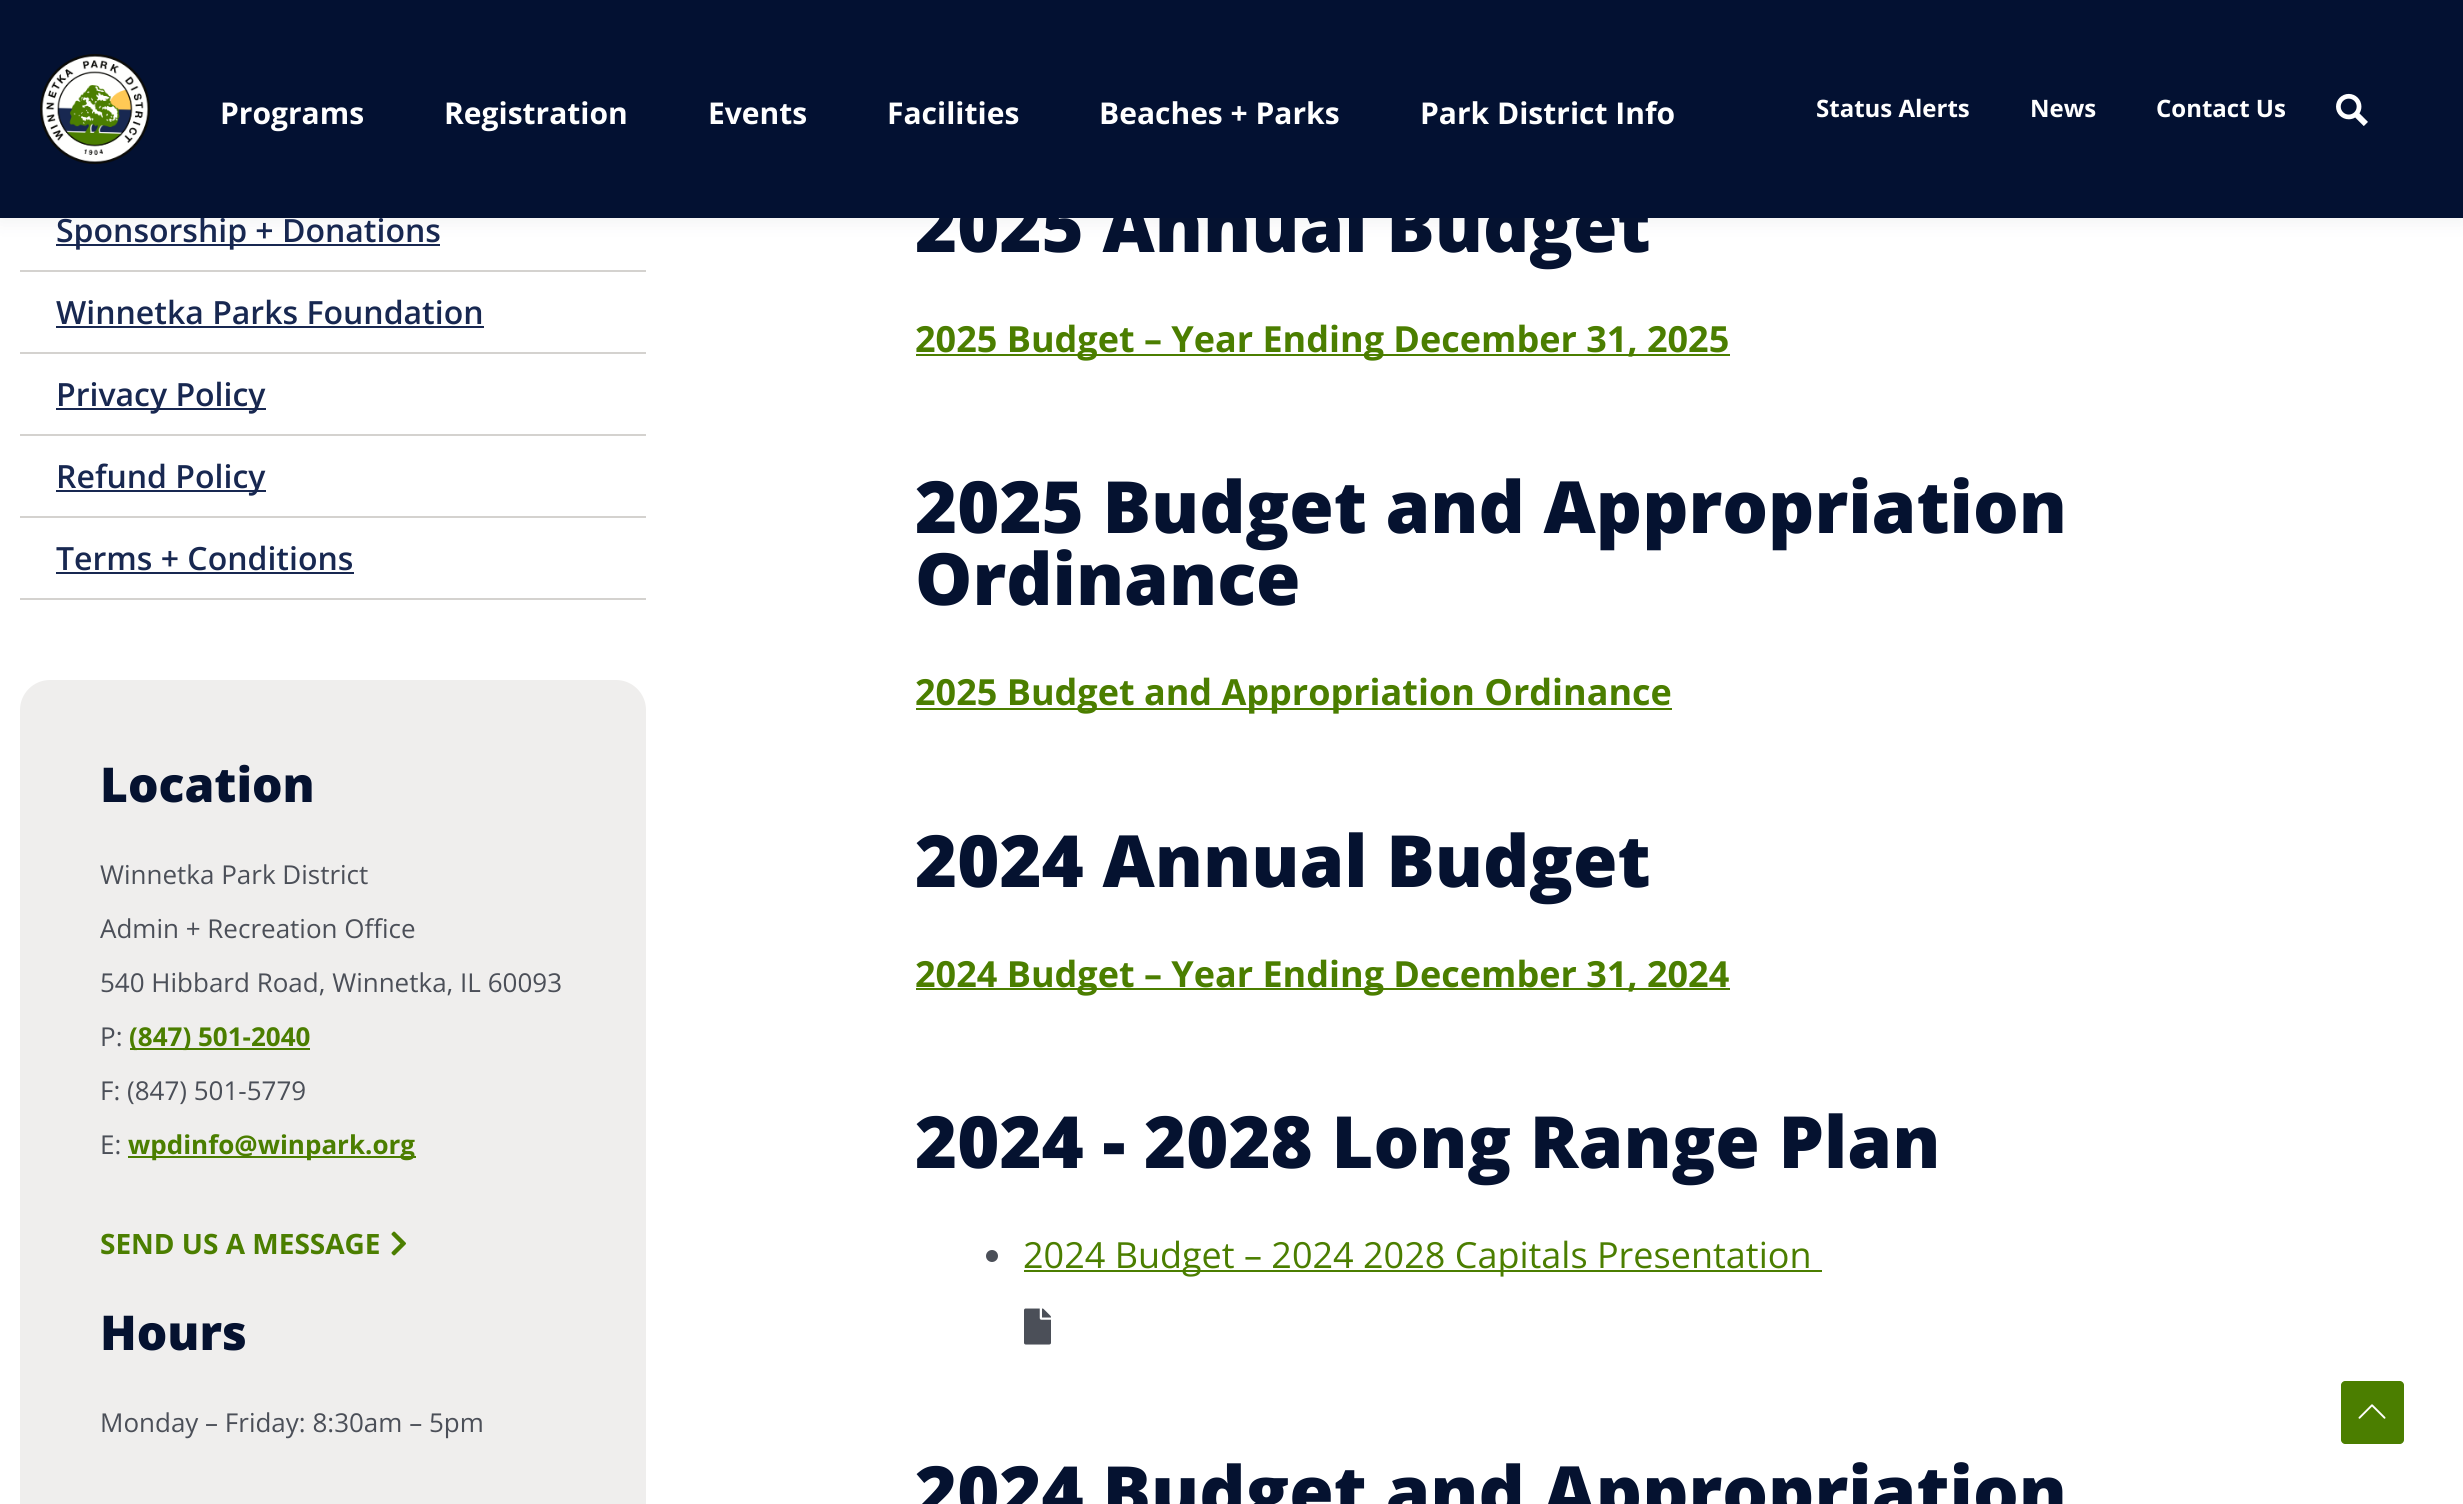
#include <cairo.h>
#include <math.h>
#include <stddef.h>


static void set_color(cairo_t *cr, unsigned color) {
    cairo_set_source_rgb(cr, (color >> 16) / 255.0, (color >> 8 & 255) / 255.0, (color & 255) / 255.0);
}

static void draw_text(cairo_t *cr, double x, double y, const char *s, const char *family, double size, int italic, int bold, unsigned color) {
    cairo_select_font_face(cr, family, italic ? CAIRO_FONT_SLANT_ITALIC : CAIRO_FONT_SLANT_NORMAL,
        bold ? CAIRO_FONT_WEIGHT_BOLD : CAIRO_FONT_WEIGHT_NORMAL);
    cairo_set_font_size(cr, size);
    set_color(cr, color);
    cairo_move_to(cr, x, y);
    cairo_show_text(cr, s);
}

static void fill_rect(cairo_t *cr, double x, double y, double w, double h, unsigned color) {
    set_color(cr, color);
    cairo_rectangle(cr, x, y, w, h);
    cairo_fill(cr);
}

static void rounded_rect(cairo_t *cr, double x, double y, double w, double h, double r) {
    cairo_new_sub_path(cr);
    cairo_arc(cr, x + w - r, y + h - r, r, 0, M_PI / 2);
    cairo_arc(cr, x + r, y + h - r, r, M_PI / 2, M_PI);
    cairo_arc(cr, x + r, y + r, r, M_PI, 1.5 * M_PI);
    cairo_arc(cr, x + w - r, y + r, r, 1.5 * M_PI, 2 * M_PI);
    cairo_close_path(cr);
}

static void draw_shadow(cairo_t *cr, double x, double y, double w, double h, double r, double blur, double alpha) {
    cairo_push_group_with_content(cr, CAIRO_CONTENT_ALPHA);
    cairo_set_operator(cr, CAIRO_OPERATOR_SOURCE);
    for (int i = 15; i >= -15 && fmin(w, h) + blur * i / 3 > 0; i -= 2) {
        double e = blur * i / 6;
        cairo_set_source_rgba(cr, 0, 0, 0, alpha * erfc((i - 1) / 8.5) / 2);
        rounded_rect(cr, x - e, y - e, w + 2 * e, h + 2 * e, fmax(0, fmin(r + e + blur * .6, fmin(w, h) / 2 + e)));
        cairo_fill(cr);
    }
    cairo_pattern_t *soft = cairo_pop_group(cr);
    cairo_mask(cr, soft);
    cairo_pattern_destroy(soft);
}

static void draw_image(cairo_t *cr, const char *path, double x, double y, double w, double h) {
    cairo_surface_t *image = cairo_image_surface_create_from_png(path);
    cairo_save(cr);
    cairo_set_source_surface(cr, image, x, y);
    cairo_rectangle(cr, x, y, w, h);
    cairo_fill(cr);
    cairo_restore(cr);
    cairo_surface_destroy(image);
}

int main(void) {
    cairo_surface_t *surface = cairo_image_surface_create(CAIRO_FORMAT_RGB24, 2463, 1504);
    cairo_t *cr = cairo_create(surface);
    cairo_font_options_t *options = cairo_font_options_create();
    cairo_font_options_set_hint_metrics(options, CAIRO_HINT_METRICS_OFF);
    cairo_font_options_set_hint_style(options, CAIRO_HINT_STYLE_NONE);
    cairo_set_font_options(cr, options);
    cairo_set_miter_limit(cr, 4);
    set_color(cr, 0xFFFFFF);
    cairo_paint(cr);
    fill_rect(cr, 56, 244, 384, 2, 0x182851);
    set_color(cr, 0x243242);
    draw_shadow(cr, 0, 4, 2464, 218, 0, 10, 0.07);
    draw_text(cr, 56, 242, "Sponsorship + Donations", "Open Sans SemiBold", 32, 0, 0, 0x182851);
    draw_text(cr, 915, 252, "2025 Annual Budget", "Open Sans ExtraBold", 72, 0, 0, 0x051230);
    fill_rect(cr, 0, 0, 2463, 218, 0x031132);
    draw_image(cr, "assets/img1.png", 40, 54, 110, 110);
    draw_text(cr, 220, 124, "Programs", "Open Sans", 30, 0, 1, 0xFFFFFF);
    draw_text(cr, 444, 124, "Registration", "Open Sans", 30, 0, 1, 0xFFFFFF);
    draw_text(cr, 708, 124, "Events", "Open Sans", 30, 0, 1, 0xFFFFFF);
    draw_text(cr, 887, 124, "Facilities", "Open Sans", 30, 0, 1, 0xFFFFFF);
    draw_text(cr, 1099, 124, "Beaches + Parks", "Open Sans", 30, 0, 1, 0xFFFFFF);
    draw_text(cr, 1420, 124, "Park District Info", "Open Sans", 30, 0, 1, 0xFFFFFF);
    draw_text(cr, 1816, 117, "Status Alerts", "Open Sans", 24, 0, 1, 0xFFFFFF);
    draw_text(cr, 2030, 117, "News", "Open Sans", 24, 0, 1, 0xFFFFFF);
    draw_text(cr, 2156, 117, "Contact Us", "Open Sans", 24, 0, 1, 0xFFFFFF);
    draw_image(cr, "assets/img2.png", 2336, 93, 32, 33);
    fill_rect(cr, 20, 598, 626, 2, 0xD4D2CF);
    fill_rect(cr, 20, 270, 626, 2, 0xD4D2CF);
    fill_rect(cr, 20, 352, 626, 2, 0xD4D2CF);
    draw_text(cr, 56, 324, "Winnetka Parks Foundation", "Open Sans SemiBold", 32, 0, 0, 0x182851);
    fill_rect(cr, 56, 326, 428, 2, 0x182851);
    fill_rect(cr, 20, 434, 626, 2, 0xD4D2CF);
    fill_rect(cr, 56, 408, 210, 2, 0x182851);
    draw_text(cr, 56, 406, "Privacy Policy", "Open Sans SemiBold", 32, 0, 0, 0x182851);
    fill_rect(cr, 20, 516, 626, 2, 0xD4D2CF);
    fill_rect(cr, 56, 490, 210, 2, 0x182851);
    draw_text(cr, 56, 488, "Refund Policy", "Open Sans SemiBold", 32, 0, 0, 0x182851);
    draw_text(cr, 56, 570, "Terms + Conditions", "Open Sans SemiBold", 32, 0, 0, 0x182851);
    fill_rect(cr, 56, 572, 298, 2, 0x182851);
    set_color(cr, 0xEFEEED);
    rounded_rect(cr, 20, 680, 626, 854, 30);
    cairo_fill(cr);
    draw_text(cr, 100, 802, "Location", "Open Sans ExtraBold", 48, 0, 0, 0x051230);
    draw_text(cr, 100, 884, "Winnetka Park District", "Open Sans", 26, 0, 0, 0x4B4F58);
    draw_text(cr, 100, 938, "Admin + Recreation Office", "Open Sans", 26, 0, 0, 0x4B4F58);
    draw_text(cr, 100, 992, "540 Hibbard Road, Winnetka, IL 60093", "Open Sans", 26, 0, 0, 0x4B4F58);
    draw_text(cr, 100, 1046, "P:", "Open Sans", 26, 0, 0, 0x4B4F58);
    fill_rect(cr, 130, 1048, 180, 2, 0x4B7E00);
    draw_text(cr, 129, 1046, "(847) 501-2040", "Open Sans", 26, 0, 1, 0x4B7E00);
    draw_text(cr, 100, 1100, "F: (847) 501-5779", "Open Sans", 26, 0, 0, 0x4B4F58);
    draw_text(cr, 100, 1154, "E:", "Open Sans", 26, 0, 0, 0x4B4F58);
    fill_rect(cr, 128, 1156, 288, 2, 0x4B7E00);
    draw_text(cr, 128, 1154, "wpdinfo@winpark.org", "Open Sans", 26, 0, 1, 0x4B7E00);
    draw_text(cr, 100, 1254, "SEND US A MESSAGE", "Open Sans", 28, 0, 1, 0x4B7E00);
    draw_image(cr, "assets/img3.png", 391, 1231, 15, 25);
    draw_text(cr, 100, 1350, "Hours", "Open Sans ExtraBold", 48, 0, 0, 0x051230);
    draw_text(cr, 100, 1432, "Monday – Friday: 8:30am – 5pm", "Open Sans", 26, 0, 0, 0x4B4F58);
    fill_rect(cr, 916, 354, 814, 2, 0x4B7E00);
    draw_text(cr, 915, 352, "2025 Budget – Year Ending December 31, 2025", "Open Sans", 36, 0, 1, 0x4B7E00);
    draw_text(cr, 915, 533, "2025 Budget and Appropriation", "Open Sans ExtraBold", 72, 0, 0, 0x051230);
    draw_text(cr, 915, 605, "Ordinance", "Open Sans ExtraBold", 72, 0, 0, 0x051230);
    fill_rect(cr, 916, 708, 756, 2, 0x4B7E00);
    draw_text(cr, 915, 705, "2025 Budget and Appropriation Ordinance", "Open Sans", 36, 0, 1, 0x4B7E00);
    draw_text(cr, 915, 887, "2024 Annual Budget", "Open Sans ExtraBold", 72, 0, 0, 0x051230);
    fill_rect(cr, 916, 988, 814, 2, 0x4B7E00);
    draw_text(cr, 915, 987, "2024 Budget – Year Ending December 31, 2024", "Open Sans", 36, 0, 1, 0x4B7E00);
    draw_text(cr, 915, 1168, "2024 - 2028 Long Range Plan", "Open Sans ExtraBold", 72, 0, 0, 0x051230);
    set_color(cr, 0x4B4F58);
    cairo_new_path(cr);
    cairo_arc(cr, 992, 1256, 6, 0, 2 * M_PI);
    cairo_fill(cr);
    fill_rect(cr, 1024, 1270, 798, 2, 0x4B7E00);
    draw_text(cr, 1023, 1268, "2024 Budget – 2024 2028 Capitals Presentation", "Open Sans", 36, 0, 0, 0x4B7E00);
    draw_image(cr, "assets/img4.png", 1024, 1308, 27, 37);
    draw_text(cr, 915, 1518, "2024 Budget and Appropriation", "Open Sans ExtraBold", 72, 0, 0, 0x051230);
    set_color(cr, 0x4B7E00);
    cairo_new_path(cr);
    cairo_move_to(cr, 2400, 1444);
    cairo_line_to(cr, 2345, 1444);
    cairo_curve_to(cr, 2343, 1444, 2341, 1442, 2341, 1440);
    cairo_line_to(cr, 2341, 1385);
    cairo_curve_to(cr, 2341, 1383, 2343, 1381, 2345, 1381);
    cairo_line_to(cr, 2400, 1381);
    cairo_curve_to(cr, 2402, 1381, 2404, 1383, 2404, 1385);
    cairo_line_to(cr, 2404, 1440);
    cairo_curve_to(cr, 2404, 1442, 2402, 1444, 2400, 1444);
    cairo_close_path(cr);
    cairo_fill(cr);
    draw_image(cr, "assets/img5.png", 2358, 1404, 28, 15);
    cairo_surface_write_to_png(surface, "output.png");
    cairo_font_options_destroy(options);
    cairo_destroy(cr);
    cairo_surface_destroy(surface);
    return 0;
}
